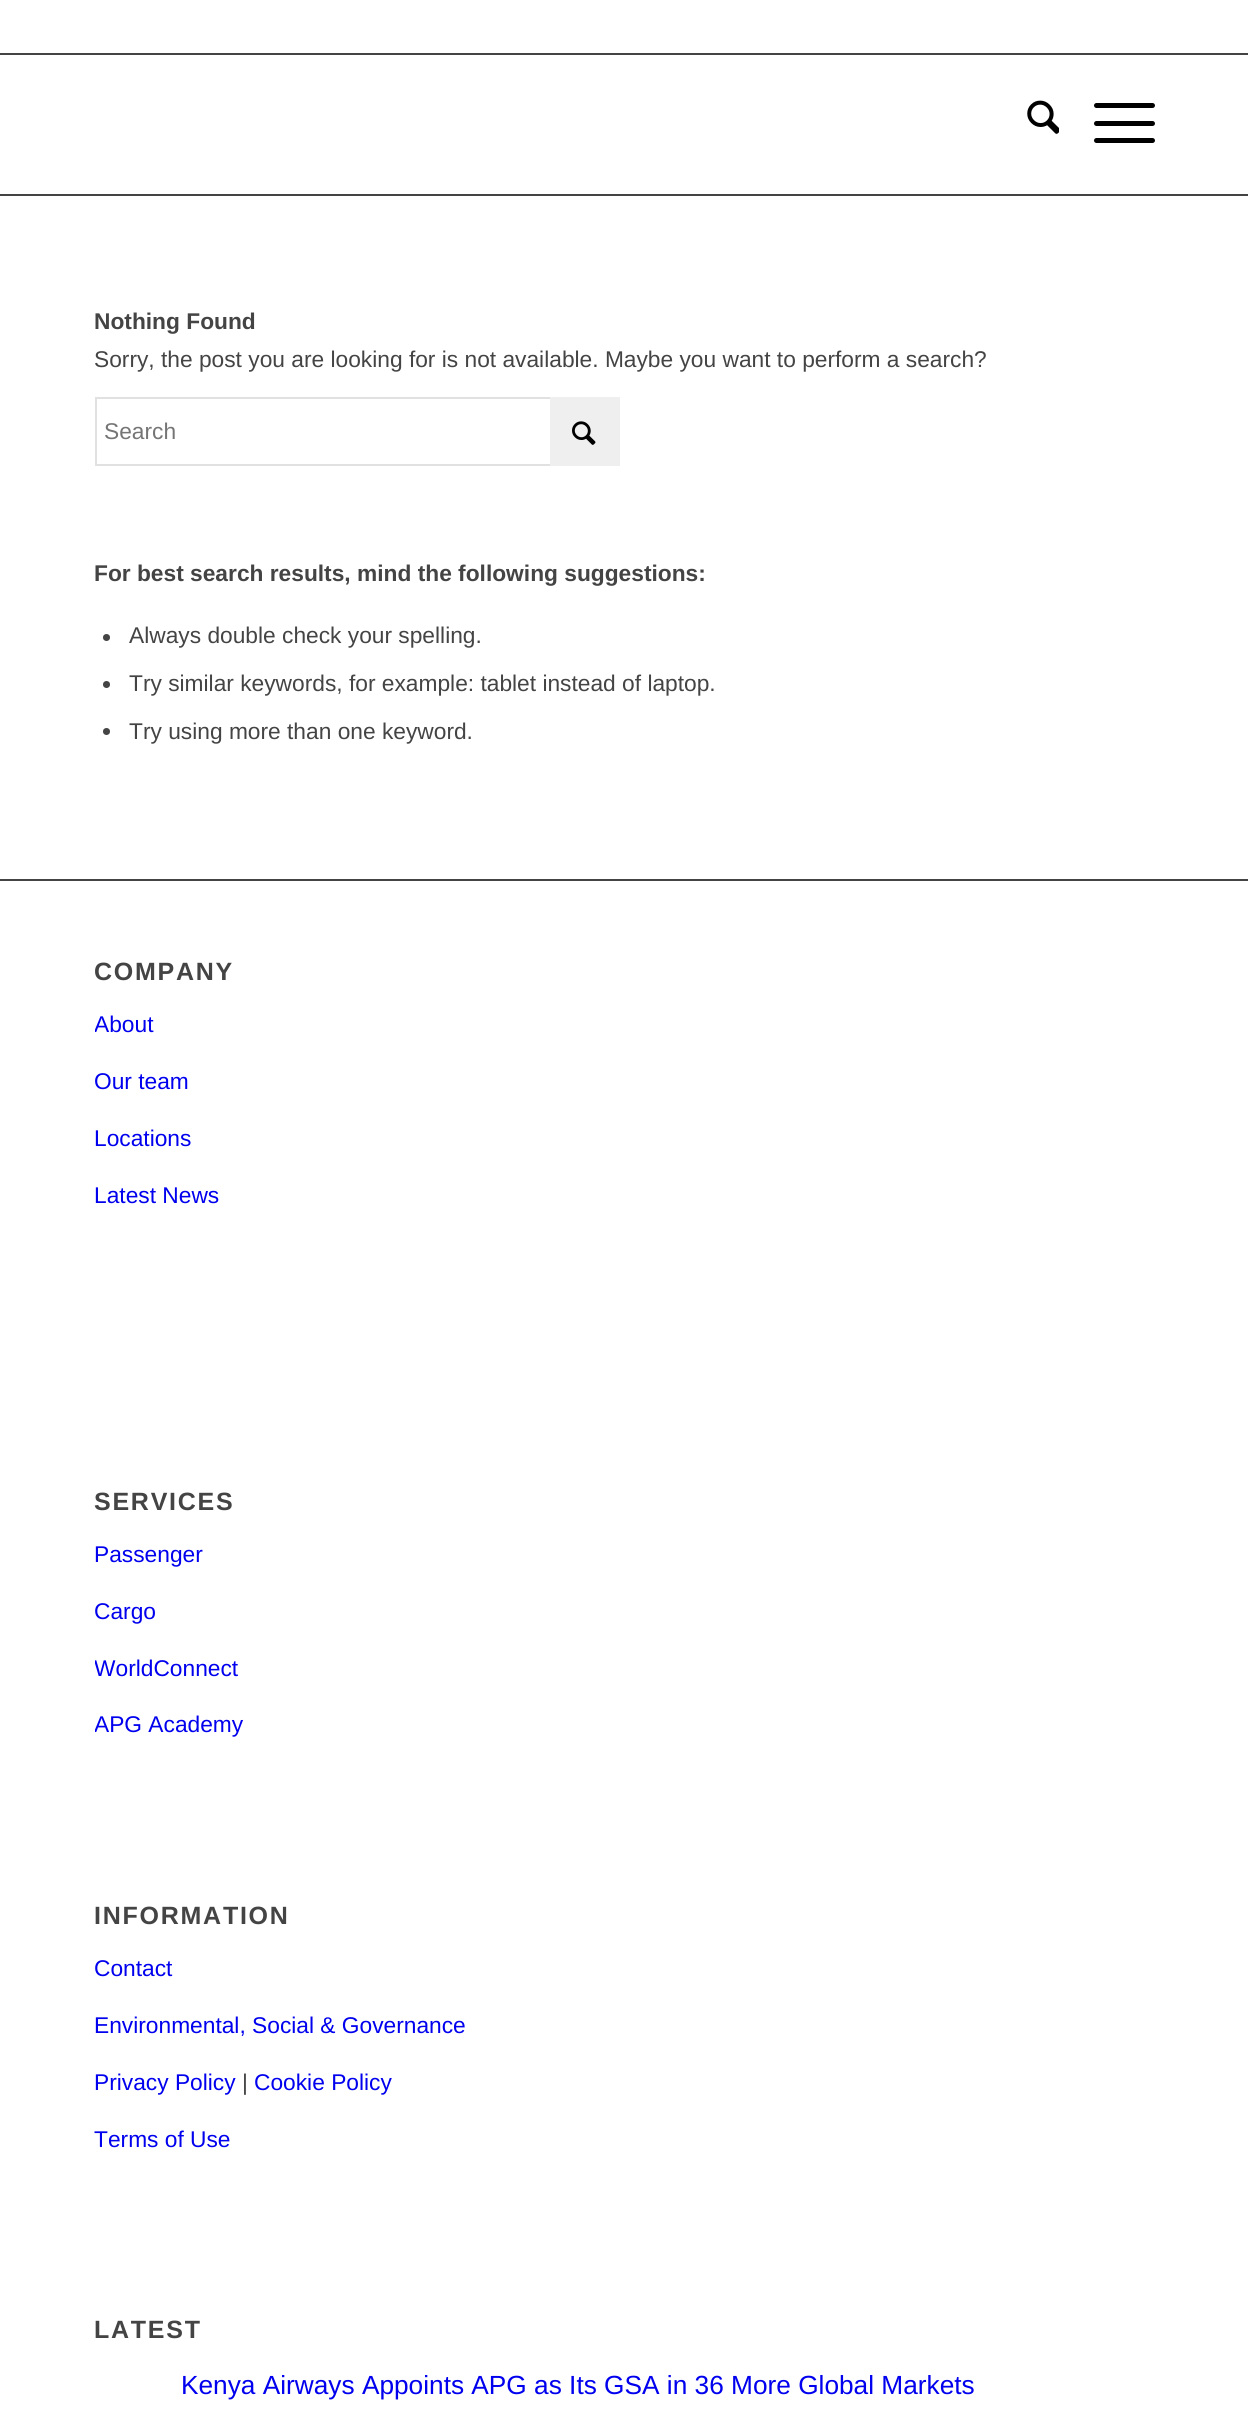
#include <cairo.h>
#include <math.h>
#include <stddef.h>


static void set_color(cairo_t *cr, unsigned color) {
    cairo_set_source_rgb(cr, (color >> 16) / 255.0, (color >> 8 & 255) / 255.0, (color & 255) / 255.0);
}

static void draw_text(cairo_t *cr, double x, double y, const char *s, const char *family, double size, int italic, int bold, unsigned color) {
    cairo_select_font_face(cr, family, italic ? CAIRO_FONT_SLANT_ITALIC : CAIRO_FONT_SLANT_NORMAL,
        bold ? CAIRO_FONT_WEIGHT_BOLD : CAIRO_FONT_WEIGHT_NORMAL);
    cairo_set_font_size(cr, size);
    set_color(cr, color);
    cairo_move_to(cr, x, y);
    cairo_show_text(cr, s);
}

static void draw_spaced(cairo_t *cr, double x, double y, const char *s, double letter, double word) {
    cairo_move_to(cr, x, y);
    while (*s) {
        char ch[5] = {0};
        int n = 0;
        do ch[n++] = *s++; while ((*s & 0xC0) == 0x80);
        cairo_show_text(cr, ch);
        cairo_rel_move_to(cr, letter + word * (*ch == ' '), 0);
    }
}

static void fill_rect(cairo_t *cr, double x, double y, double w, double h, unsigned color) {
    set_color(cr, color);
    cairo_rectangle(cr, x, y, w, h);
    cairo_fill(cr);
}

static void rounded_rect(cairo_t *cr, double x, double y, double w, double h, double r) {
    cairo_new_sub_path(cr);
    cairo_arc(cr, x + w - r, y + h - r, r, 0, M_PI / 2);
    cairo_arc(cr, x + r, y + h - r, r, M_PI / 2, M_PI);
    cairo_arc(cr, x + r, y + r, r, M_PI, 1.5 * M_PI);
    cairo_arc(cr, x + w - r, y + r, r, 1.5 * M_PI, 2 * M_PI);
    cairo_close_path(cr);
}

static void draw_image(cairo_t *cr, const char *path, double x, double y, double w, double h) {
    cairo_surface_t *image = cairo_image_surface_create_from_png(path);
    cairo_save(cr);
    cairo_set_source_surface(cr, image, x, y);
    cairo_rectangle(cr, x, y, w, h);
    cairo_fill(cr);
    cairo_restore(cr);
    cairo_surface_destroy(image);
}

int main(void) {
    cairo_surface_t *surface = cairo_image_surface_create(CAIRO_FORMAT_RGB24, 1248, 2433);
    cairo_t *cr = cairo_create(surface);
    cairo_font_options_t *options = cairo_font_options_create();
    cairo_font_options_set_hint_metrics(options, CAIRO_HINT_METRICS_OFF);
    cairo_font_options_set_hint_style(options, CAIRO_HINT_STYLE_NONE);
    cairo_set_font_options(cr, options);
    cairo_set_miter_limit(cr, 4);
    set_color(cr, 0xFFFFFF);
    cairo_paint(cr);
    fill_rect(cr, 0, 53, 1248, 2, 0x444444);
    fill_rect(cr, 0, 194, 1248, 2, 0x444444);
    draw_image(cr, "assets/img1.png", 1027, 100, 32, 34);
    set_color(cr, 0x000000);
    rounded_rect(cr, 1094, 121, 61, 5, 2.5);
    cairo_fill(cr);
    rounded_rect(cr, 1094, 103, 61, 5, 2.5);
    cairo_fill(cr);
    rounded_rect(cr, 1094, 138, 61, 5, 2.5);
    cairo_fill(cr);
    draw_text(cr, 94, 329, "Nothing Found", "Liberation Sans", 22.75, 0, 1, 0x444444);
    draw_text(cr, 94, 367, "Sorry, the post you are looking for is not available. Maybe you want to perform a search?", "Liberation Sans", 22.75, 0, 0, 0x444444);
    cairo_rectangle(cr, 96, 398, 523, 67);
    set_color(cr, 0xE1E1E1);
    cairo_stroke(cr);
    fill_rect(cr, 550, 397, 70, 69, 0xEFEFEF);
    draw_text(cr, 104, 439, "Search", "Liberation Sans", 22.75, 0, 0, 0x757575);
    draw_image(cr, "assets/img2.png", 572, 421, 24, 24);
    draw_text(cr, 94, 581, "For best search results, mind the following suggestions:", "Liberation Sans", 22.75, 0, 1, 0x444444);
    cairo_new_path(cr);
    cairo_arc(cr, 106.5, 637.5, 3.5, 0, 2 * M_PI);
    cairo_fill(cr);
    draw_text(cr, 129, 643, "Always double check your spelling.", "Liberation Sans", 22.75, 0, 0, 0x444444);
    cairo_new_path(cr);
    cairo_arc(cr, 106.5, 684.5, 3.5, 0, 2 * M_PI);
    cairo_fill(cr);
    draw_text(cr, 129, 691, "Try similar keywords, for example: tablet instead of laptop.", "Liberation Sans", 22.75, 0, 0, 0x444444);
    cairo_new_path(cr);
    cairo_arc(cr, 106.5, 731.5, 3.5, 0, 2 * M_PI);
    cairo_fill(cr);
    draw_text(cr, 129, 739, "Try using more than one keyword.", "Liberation Sans", 22.75, 0, 0, 0x444444);
    fill_rect(cr, 0, 879, 1248, 2, 0x444444);
    cairo_save(cr);
    cairo_rectangle(cr, 95, 959, 1060, 390);
    cairo_clip(cr);
    cairo_select_font_face(cr, "Liberation Sans", CAIRO_FONT_SLANT_NORMAL, CAIRO_FONT_WEIGHT_BOLD);
    cairo_set_font_size(cr, 25);
    draw_spaced(cr, 94, 980, "COMPANY", 1.75, 0);
    draw_text(cr, 94, 1032, "About", "Liberation Sans", 22.75, 0, 0, 0x0000EE);
    draw_text(cr, 94, 1089, "Our team", "Liberation Sans", 22.75, 0, 0, 0x0000EE);
    cairo_restore(cr);
    draw_text(cr, 94, 1146, "Locations", "Liberation Sans", 22.75, 0, 0, 0x0000EE);
    draw_text(cr, 94, 1203, "Latest News", "Liberation Sans", 22.75, 0, 0, 0x0000EE);
    cairo_select_font_face(cr, "Liberation Sans", CAIRO_FONT_SLANT_NORMAL, CAIRO_FONT_WEIGHT_BOLD);
    cairo_set_font_size(cr, 25);
    set_color(cr, 0x444444);
    draw_spaced(cr, 94, 1510, "SERVICES", 1.75, 0);
    draw_text(cr, 94, 1562, "Passenger", "Liberation Sans", 22.75, 0, 0, 0x0000EE);
    draw_text(cr, 94, 1619, "Cargo", "Liberation Sans", 22.75, 0, 0, 0x0000EE);
    cairo_save(cr);
    cairo_rectangle(cr, 95, 1489, 1060, 273);
    cairo_clip(cr);
    draw_text(cr, 94, 1676, "WorldConnect", "Liberation Sans", 22.75, 0, 0, 0x0000EE);
    draw_text(cr, 94, 1732, "APG Academy", "Liberation Sans", 22.75, 0, 0, 0x0000EE);
    cairo_restore(cr);
    cairo_select_font_face(cr, "Liberation Sans", CAIRO_FONT_SLANT_NORMAL, CAIRO_FONT_WEIGHT_BOLD);
    cairo_set_font_size(cr, 25);
    set_color(cr, 0x444444);
    draw_spaced(cr, 94, 1924, "INFORMATION", 1.75, 0);
    draw_text(cr, 94, 1976, "Contact", "Liberation Sans", 22.75, 0, 0, 0x0000EE);
    draw_text(cr, 94, 2033, "Environmental, Social & Governance", "Liberation Sans", 22.75, 0, 0, 0x0000EE);
    draw_text(cr, 94, 2090, "Privacy Policy", "Liberation Sans", 22.75, 0, 0, 0x0000EE);
    draw_text(cr, 242, 2090, "|", "Liberation Sans", 22.75, 0, 0, 0x444444);
    draw_text(cr, 254, 2090, "Cookie Policy", "Liberation Sans", 22.75, 0, 0, 0x0000EE);
    draw_text(cr, 94, 2147, "Terms of Use", "Liberation Sans", 22.75, 0, 0, 0x0000EE);
    cairo_select_font_face(cr, "Liberation Sans", CAIRO_FONT_SLANT_NORMAL, CAIRO_FONT_WEIGHT_BOLD);
    cairo_set_font_size(cr, 25);
    set_color(cr, 0x444444);
    draw_spaced(cr, 94, 2338, "LATEST", 1.75, 0);
    draw_text(cr, 181, 2394, "Kenya Airways Appoints APG as Its GSA in 36 More Global Markets", "Liberation Sans", 26.25, 0, 0, 0x0000EE);
    cairo_surface_write_to_png(surface, "output.png");
    cairo_font_options_destroy(options);
    cairo_destroy(cr);
    cairo_surface_destroy(surface);
    return 0;
}
